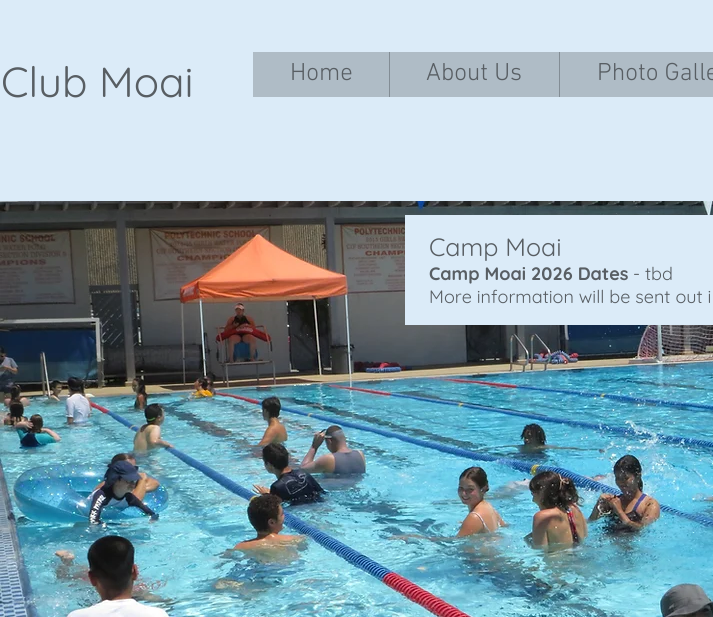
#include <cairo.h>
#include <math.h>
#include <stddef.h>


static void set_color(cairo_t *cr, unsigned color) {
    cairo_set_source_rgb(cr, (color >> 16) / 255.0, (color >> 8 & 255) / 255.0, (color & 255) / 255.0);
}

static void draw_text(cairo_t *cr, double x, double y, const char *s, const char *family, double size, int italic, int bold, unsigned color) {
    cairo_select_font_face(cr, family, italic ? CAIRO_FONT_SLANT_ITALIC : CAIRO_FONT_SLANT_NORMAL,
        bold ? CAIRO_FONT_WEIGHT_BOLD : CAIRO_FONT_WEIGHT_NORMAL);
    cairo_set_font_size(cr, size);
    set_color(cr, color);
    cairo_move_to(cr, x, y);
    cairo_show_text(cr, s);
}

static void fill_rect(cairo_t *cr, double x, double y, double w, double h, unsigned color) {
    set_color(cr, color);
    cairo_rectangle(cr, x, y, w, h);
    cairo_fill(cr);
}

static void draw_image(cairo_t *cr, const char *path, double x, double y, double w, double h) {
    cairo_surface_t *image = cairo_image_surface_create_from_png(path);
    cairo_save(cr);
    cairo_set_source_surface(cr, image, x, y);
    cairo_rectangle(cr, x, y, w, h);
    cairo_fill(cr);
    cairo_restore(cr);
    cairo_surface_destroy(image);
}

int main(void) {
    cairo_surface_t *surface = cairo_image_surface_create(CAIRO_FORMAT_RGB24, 713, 617);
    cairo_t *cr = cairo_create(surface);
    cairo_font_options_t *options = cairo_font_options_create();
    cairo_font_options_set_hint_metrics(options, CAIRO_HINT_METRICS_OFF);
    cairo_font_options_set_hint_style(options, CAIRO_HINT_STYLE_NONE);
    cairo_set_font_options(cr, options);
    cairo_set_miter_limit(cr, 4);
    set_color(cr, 0xDBEBF8);
    cairo_paint(cr);
    draw_text(cr, 1, 97, "Club Moai", "Quicksand", 42, 0, 0, 0x585E63);
    fill_rect(cr, 253, 52, 460, 45, 0xAFBCC6);
    draw_text(cr, 290, 80, "Home", "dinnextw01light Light", 25, 0, 0, 0x585E63);
    fill_rect(cr, 389, 52, 1, 45, 0x838D95);
    draw_text(cr, 426, 80, "About Us", "dinnextw01light Light", 25, 0, 0, 0x585E63);
    fill_rect(cr, 559, 52, 1, 45, 0x838D95);
    draw_text(cr, 597, 80, "Photo Galle", "dinnextw01light Light", 25, 0, 0, 0x585E63);
    draw_image(cr, "assets/img1.png", 0, 201, 713, 416);
    fill_rect(cr, 405, 215, 308, 110, 0xDBEBF8);
    draw_text(cr, 429, 256, "Camp Moai", "Quicksand", 25, 0, 0, 0x585E63);
    draw_text(cr, 429, 280, "Camp Moai 2026 Dates", "Quicksand", 18, 0, 1, 0x585E63);
    draw_text(cr, 633, 280, "- tbd", "Quicksand", 18, 0, 0, 0x585E63);
    draw_text(cr, 429, 303, "More information will be sent out i", "Quicksand", 18, 0, 0, 0x585E63);
    cairo_surface_write_to_png(surface, "output.png");
    cairo_font_options_destroy(options);
    cairo_destroy(cr);
    cairo_surface_destroy(surface);
    return 0;
}
